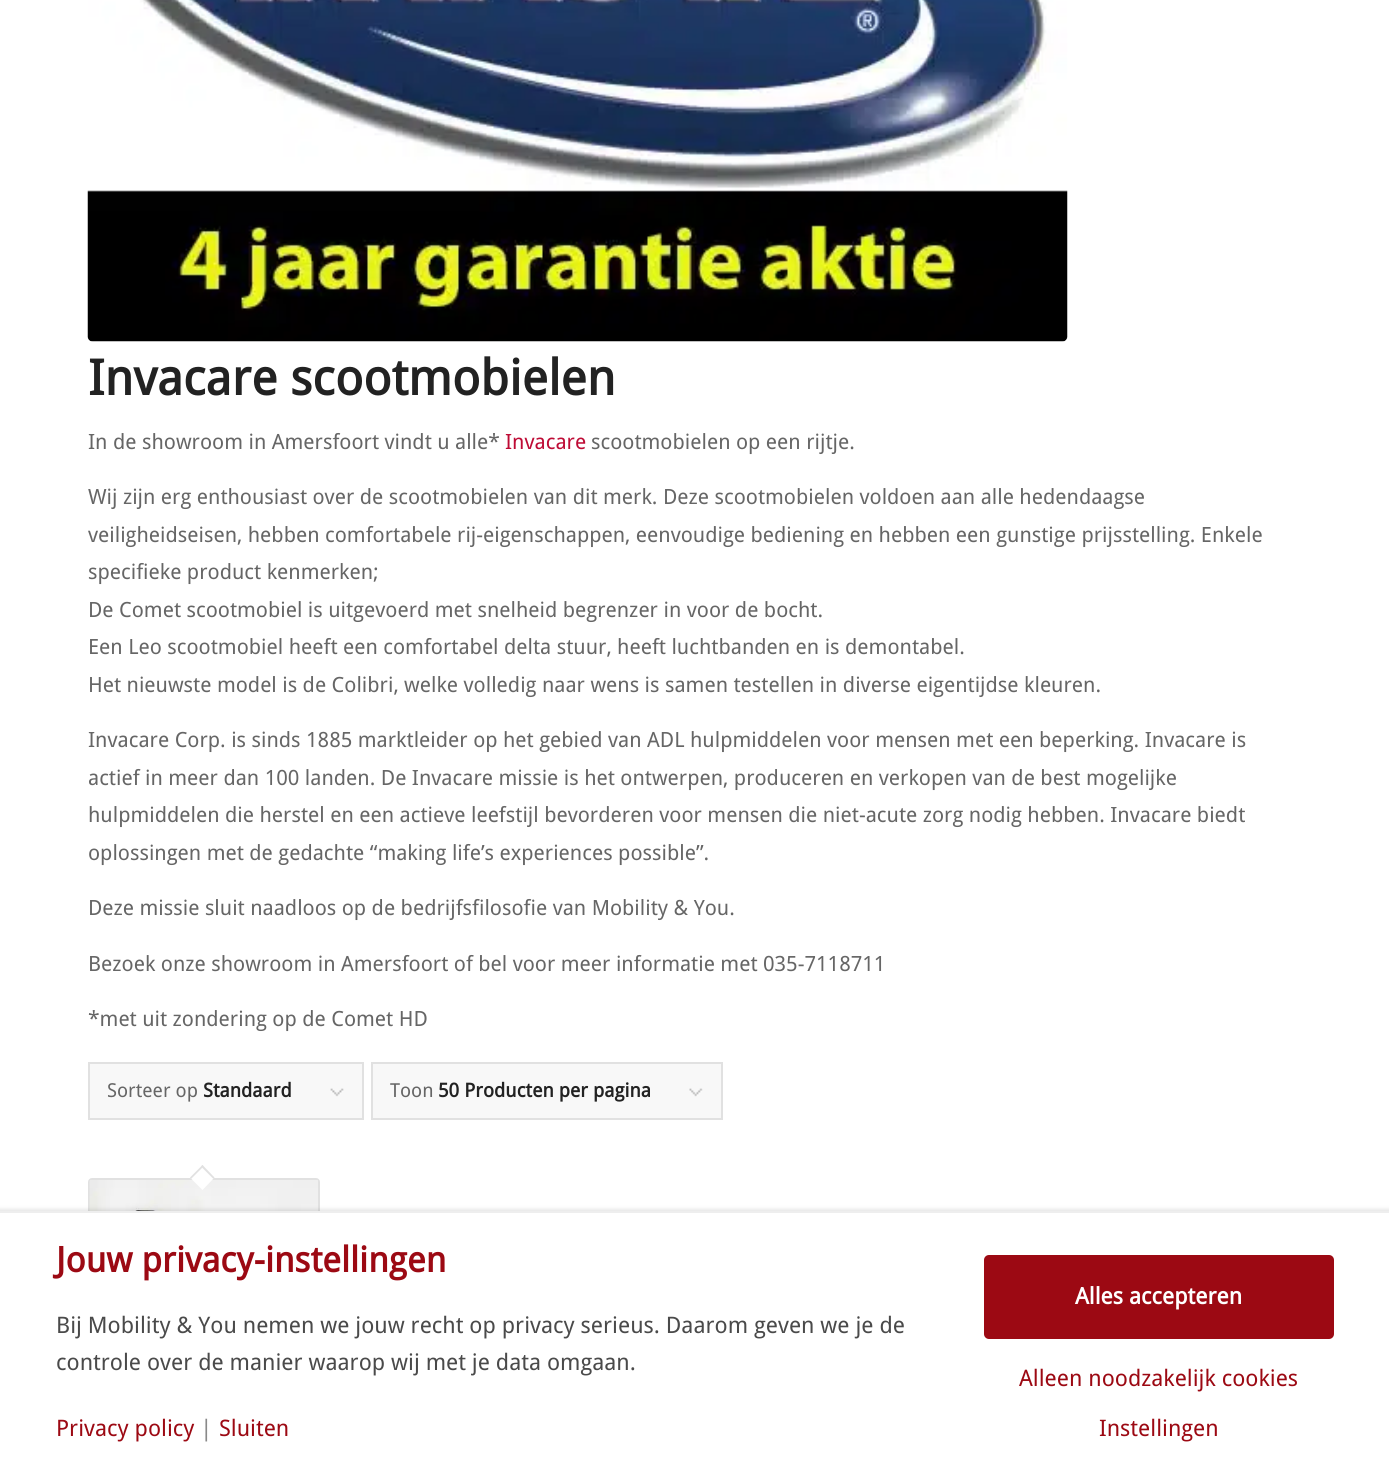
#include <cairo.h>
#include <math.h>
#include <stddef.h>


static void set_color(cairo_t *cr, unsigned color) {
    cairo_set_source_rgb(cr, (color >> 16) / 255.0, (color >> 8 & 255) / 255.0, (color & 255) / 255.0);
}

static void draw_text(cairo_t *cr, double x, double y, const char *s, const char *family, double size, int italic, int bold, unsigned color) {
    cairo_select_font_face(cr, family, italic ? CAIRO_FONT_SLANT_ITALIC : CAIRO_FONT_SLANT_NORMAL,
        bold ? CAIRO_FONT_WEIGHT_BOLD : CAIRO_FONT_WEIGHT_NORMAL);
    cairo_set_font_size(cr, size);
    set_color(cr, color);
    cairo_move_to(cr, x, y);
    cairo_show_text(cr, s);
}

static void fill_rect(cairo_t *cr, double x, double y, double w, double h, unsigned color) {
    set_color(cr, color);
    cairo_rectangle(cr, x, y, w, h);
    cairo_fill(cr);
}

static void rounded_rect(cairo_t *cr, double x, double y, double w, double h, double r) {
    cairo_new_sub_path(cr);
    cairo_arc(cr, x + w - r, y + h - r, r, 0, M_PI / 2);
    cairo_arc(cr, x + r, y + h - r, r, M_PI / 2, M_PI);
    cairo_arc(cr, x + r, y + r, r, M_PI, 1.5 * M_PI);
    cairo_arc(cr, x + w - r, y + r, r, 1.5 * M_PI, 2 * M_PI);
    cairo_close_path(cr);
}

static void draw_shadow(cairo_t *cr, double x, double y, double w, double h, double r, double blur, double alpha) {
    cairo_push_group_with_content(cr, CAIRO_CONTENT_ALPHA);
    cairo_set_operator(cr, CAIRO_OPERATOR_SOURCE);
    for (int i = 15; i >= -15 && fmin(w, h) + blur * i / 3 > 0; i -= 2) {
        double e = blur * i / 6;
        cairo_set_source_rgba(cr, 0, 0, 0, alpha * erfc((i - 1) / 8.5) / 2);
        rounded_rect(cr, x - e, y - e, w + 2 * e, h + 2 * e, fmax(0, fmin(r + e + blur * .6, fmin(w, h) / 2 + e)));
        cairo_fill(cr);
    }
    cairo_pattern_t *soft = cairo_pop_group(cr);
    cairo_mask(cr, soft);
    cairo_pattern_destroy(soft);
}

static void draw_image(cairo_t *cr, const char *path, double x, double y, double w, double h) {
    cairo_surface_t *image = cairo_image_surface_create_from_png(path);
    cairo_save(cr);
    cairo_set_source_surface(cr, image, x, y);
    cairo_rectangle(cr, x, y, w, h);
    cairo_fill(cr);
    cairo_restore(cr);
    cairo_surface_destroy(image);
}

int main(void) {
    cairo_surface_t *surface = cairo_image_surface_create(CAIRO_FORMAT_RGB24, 1389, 1475);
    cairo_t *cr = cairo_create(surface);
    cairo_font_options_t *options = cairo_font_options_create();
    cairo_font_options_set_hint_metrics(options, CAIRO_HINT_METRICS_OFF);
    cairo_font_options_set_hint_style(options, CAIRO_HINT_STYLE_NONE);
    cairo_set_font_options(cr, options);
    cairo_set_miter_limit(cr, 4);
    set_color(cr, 0xFFFFFF);
    cairo_paint(cr);
    draw_image(cr, "assets/img1.png", 87, 0, 981, 342);
    draw_text(cr, 88, 395, "Invacare scootmobielen", "Droid Sans", 49, 0, 1, 0x222222);
    draw_text(cr, 88, 449, "In de showroom in Amersfoort vindt u alle*", "Droid Sans", 21, 0, 0, 0x666666);
    draw_text(cr, 505, 449, "Invacare", "Droid Sans", 21, 0, 0, 0xBE0B35);
    draw_text(cr, 591, 449, "scootmobielen op een rijtje.", "Droid Sans", 21, 0, 0, 0x666666);
    draw_text(cr, 88, 504, "Wij zijn erg enthousiast over de scootmobielen van dit merk. Deze scootmobielen voldoen aan alle hedendaagse", "Droid Sans", 21, 0, 0, 0x666666);
    draw_text(cr, 88, 542, "veiligheidseisen, hebben comfortabele rij-eigenschappen, eenvoudige bediening en hebben een gunstige prijsstelling. Enkele", "Droid Sans", 21, 0, 0, 0x666666);
    draw_text(cr, 88, 579, "specifieke product kenmerken;", "Droid Sans", 21, 0, 0, 0x666666);
    draw_text(cr, 88, 617, "De Comet scootmobiel is uitgevoerd met snelheid begrenzer in voor de bocht.", "Droid Sans", 21, 0, 0, 0x666666);
    draw_text(cr, 88, 654, "Een Leo scootmobiel heeft een comfortabel delta stuur, heeft luchtbanden en is demontabel.", "Droid Sans", 21, 0, 0, 0x666666);
    draw_text(cr, 88, 692, "Het nieuwste model is de Colibri, welke volledig naar wens is samen testellen in diverse eigentijdse kleuren.", "Droid Sans", 21, 0, 0, 0x666666);
    draw_text(cr, 88, 747, "Invacare Corp. is sinds 1885 marktleider op het gebied van ADL hulpmiddelen voor mensen met een beperking. Invacare is", "Droid Sans", 21, 0, 0, 0x666666);
    draw_text(cr, 88, 785, "actief in meer dan 100 landen. De Invacare missie is het ontwerpen, produceren en verkopen van de best mogelijke", "Droid Sans", 21, 0, 0, 0x666666);
    draw_text(cr, 88, 822, "hulpmiddelen die herstel en een actieve leefstijl bevorderen voor mensen die niet-acute zorg nodig hebben. Invacare biedt", "Droid Sans", 21, 0, 0, 0x666666);
    draw_text(cr, 88, 860, "oplossingen met de gedachte “making life’s experiences possible”.", "Droid Sans", 21, 0, 0, 0x666666);
    draw_text(cr, 88, 915, "Deze missie sluit naadloos op de bedrijfsfilosofie van Mobility & You.", "Droid Sans", 21, 0, 0, 0x666666);
    draw_text(cr, 88, 971, "Bezoek onze showroom in Amersfoort of bel voor meer informatie met 035-7118711", "Droid Sans", 21, 0, 0, 0x666666);
    draw_text(cr, 88, 1026, "*met uit zondering op de Comet HD", "Droid Sans", 21, 0, 0, 0x666666);
    fill_rect(cr, 90, 1064, 272, 54, 0xF8F8F8);
    draw_image(cr, "assets/img2.png", 330, 1088, 14, 9);
    cairo_rectangle(cr, 89, 1063, 274, 56);
    set_color(cr, 0xE1E1E1);
    cairo_stroke(cr);
    draw_text(cr, 107, 1097, "Sorteer op", "Droid Sans", 19.25, 0, 0, 0x666666);
    draw_text(cr, 203, 1097, "Standaard", "Droid Sans", 19.25, 0, 1, 0x222222);
    fill_rect(cr, 373, 1064, 348, 54, 0xF8F8F8);
    draw_image(cr, "assets/img3.png", 689, 1088, 14, 9);
    cairo_rectangle(cr, 372, 1063, 350, 56);
    set_color(cr, 0xE1E1E1);
    cairo_stroke(cr);
    draw_text(cr, 390, 1097, "Toon", "Droid Sans", 19.25, 0, 0, 0x666666);
    draw_text(cr, 438, 1097, "50 Producten per pagina", "Droid Sans", 19.25, 0, 1, 0x222222);
    rounded_rect(cr, 89, 1179, 230, 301, 3);
    set_color(cr, 0xE1E1E1);
    cairo_stroke(cr);
    draw_image(cr, "assets/img4.png", 89, 1180, 229, 31);
    set_color(cr, 0xFFFFFF);
    cairo_new_path(cr);
    cairo_move_to(cr, 202.5, 1165);
    cairo_line_to(cr, 214.5, 1177.5);
    cairo_line_to(cr, 202.5, 1190);
    cairo_line_to(cr, 190, 1177.5);
    cairo_close_path(cr);
    cairo_fill(cr);
    set_color(cr, 0xE1E1E1);
    cairo_new_path(cr);
    cairo_move_to(cr, 202.5, 1165);
    cairo_line_to(cr, 214.5, 1177.5);
    cairo_line_to(cr, 213.5, 1179);
    cairo_line_to(cr, 201, 1166.5);
    cairo_close_path(cr);
    cairo_fill(cr);
    cairo_new_path(cr);
    cairo_move_to(cr, 202.5, 1165);
    cairo_line_to(cr, 203.5, 1166.5);
    cairo_line_to(cr, 191, 1179);
    cairo_line_to(cr, 190, 1177.5);
    cairo_close_path(cr);
    cairo_fill(cr);
    set_color(cr, 0x000000);
    draw_shadow(cr, -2, 1209, 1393, 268, 0, 2, 0.1);
    fill_rect(cr, 0, 1213, 1389, 262, 0xFFFFFF);
    fill_rect(cr, 0, 1211, 1389, 2, 0xEEEEEE);
    draw_text(cr, 56, 1272, "Jouw privacy-instellingen", "Droid Sans", 35, 0, 1, 0x9C0913);
    draw_text(cr, 56, 1333, "Bij Mobility & You nemen we jouw recht op privacy serieus. Daarom geven we je de", "Droid Sans", 22.75, 0, 0, 0x4A4A4A);
    draw_text(cr, 56, 1370, "controle over de manier waarop wij met je data omgaan.", "Droid Sans", 22.75, 0, 0, 0x4A4A4A);
    draw_text(cr, 56, 1436, "Privacy policy", "Droid Sans", 22.75, 0, 0, 0x9C0913);
    draw_text(cr, 200, 1436, "|", "Droid Sans", 22.75, 0, 0, 0x898989);
    draw_text(cr, 219, 1436, "Sluiten", "Droid Sans", 22.75, 0, 0, 0x9C0913);
    rounded_rect(cr, 984, 1255, 350, 84, 5);
    cairo_fill(cr);
    draw_text(cr, 1075, 1304, "Alles accepteren", "Droid Sans", 22.75, 0, 1, 0xFFFFFF);
    draw_text(cr, 1019, 1386, "Alleen noodzakelijk cookies", "Droid Sans", 22.75, 0, 0, 0x9C0913);
    draw_text(cr, 1099, 1436, "Instellingen", "Droid Sans", 22.75, 0, 0, 0x9C0913);
    cairo_surface_write_to_png(surface, "output.png");
    cairo_font_options_destroy(options);
    cairo_destroy(cr);
    cairo_surface_destroy(surface);
    return 0;
}
